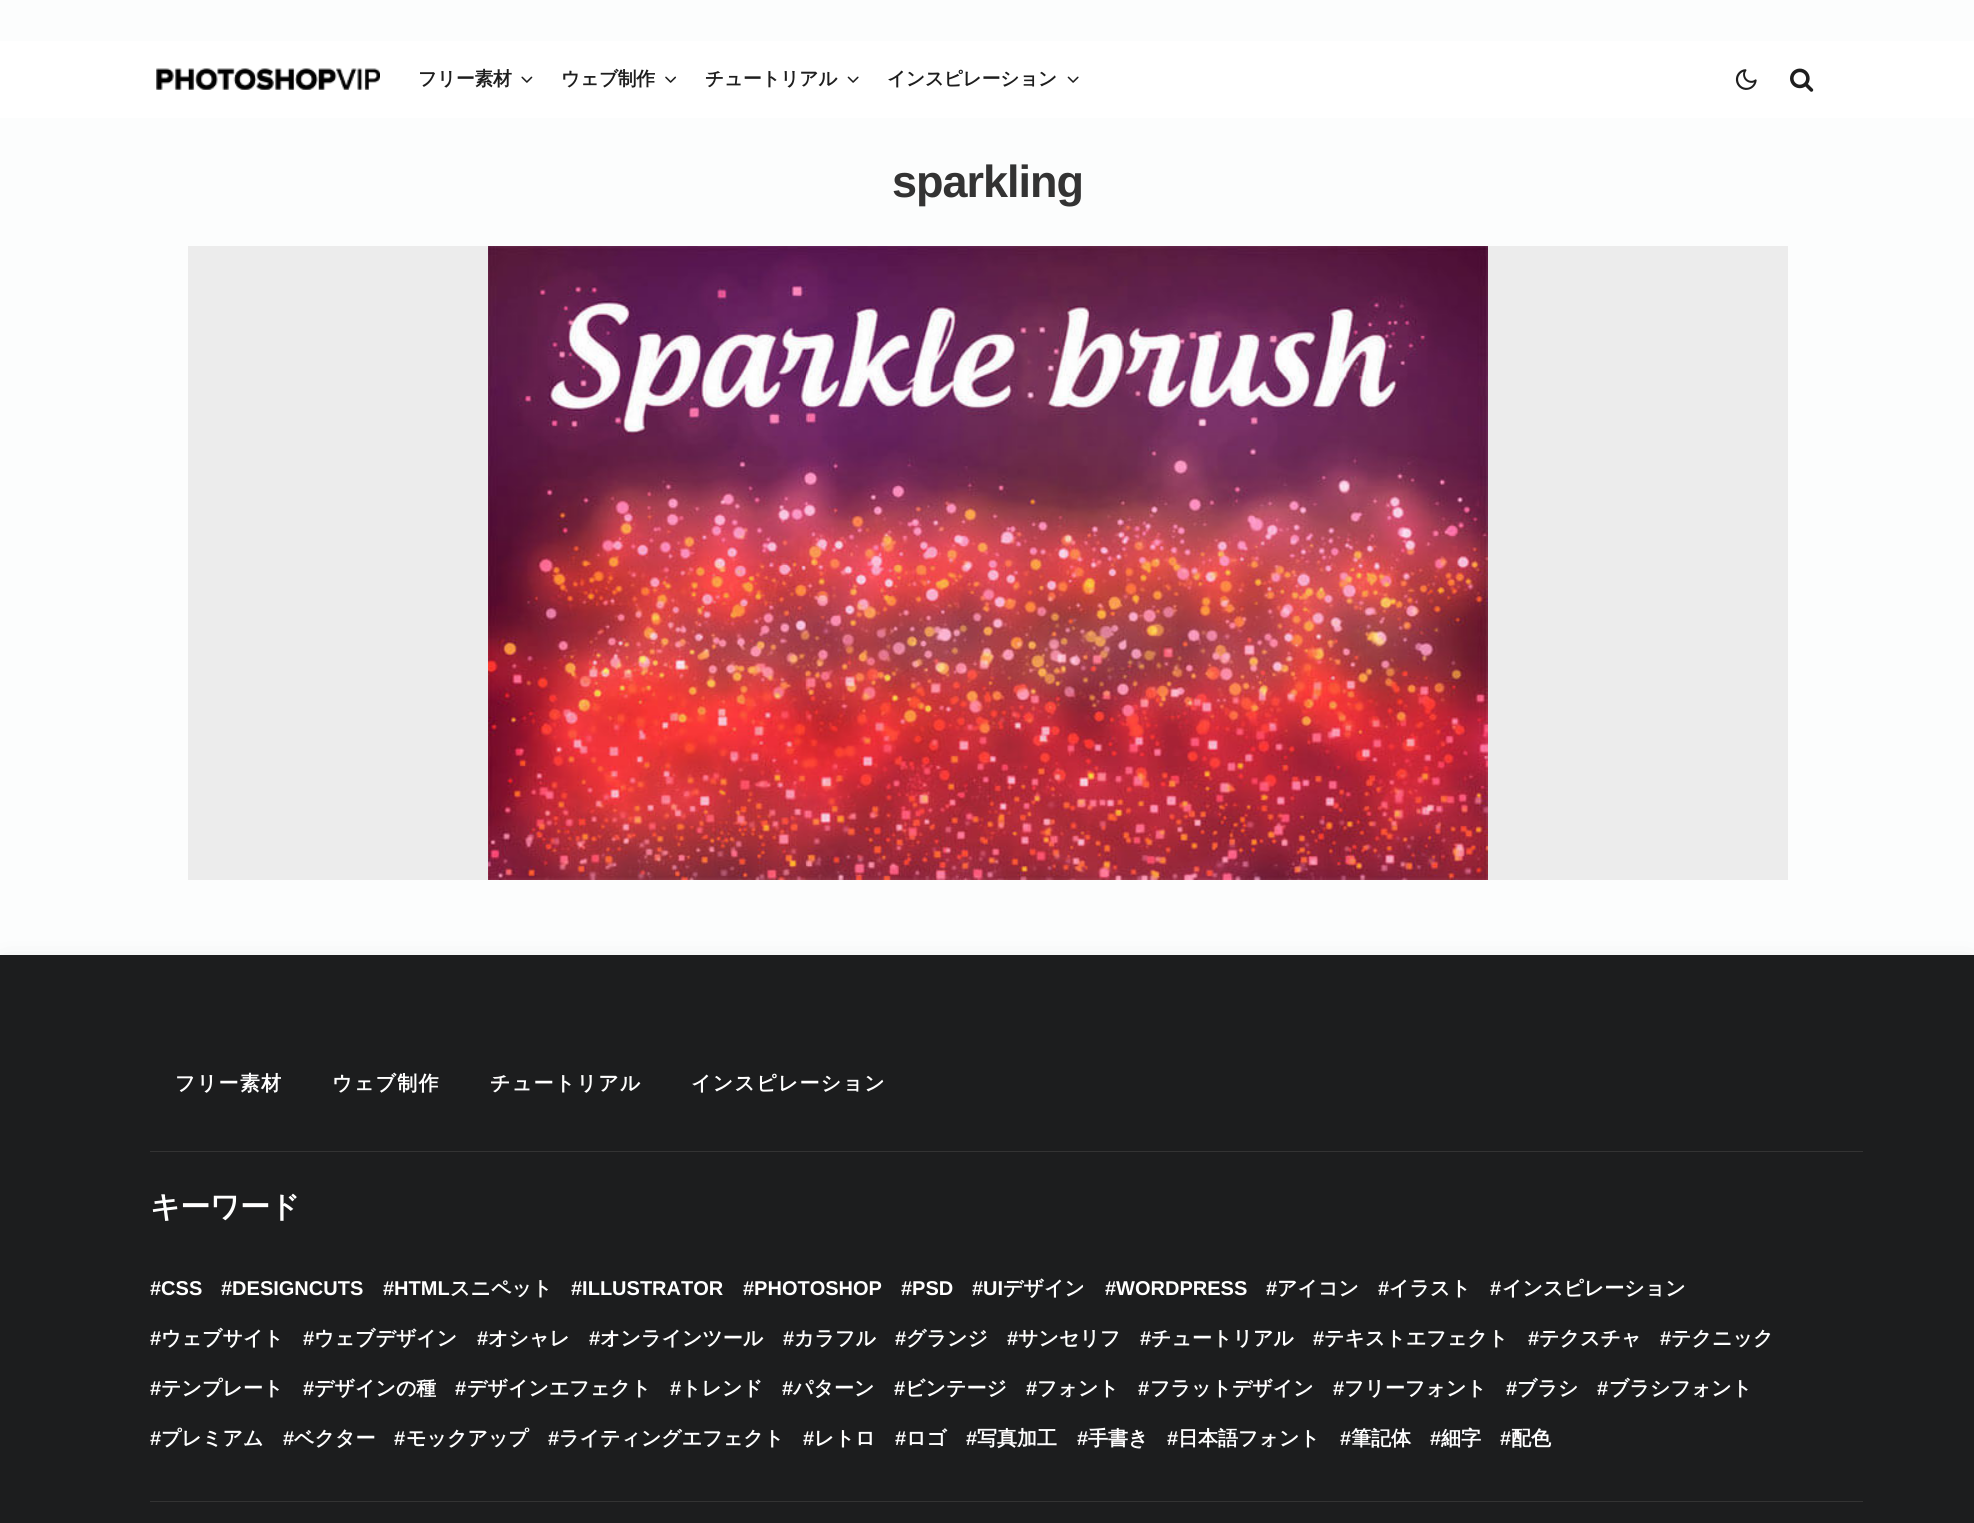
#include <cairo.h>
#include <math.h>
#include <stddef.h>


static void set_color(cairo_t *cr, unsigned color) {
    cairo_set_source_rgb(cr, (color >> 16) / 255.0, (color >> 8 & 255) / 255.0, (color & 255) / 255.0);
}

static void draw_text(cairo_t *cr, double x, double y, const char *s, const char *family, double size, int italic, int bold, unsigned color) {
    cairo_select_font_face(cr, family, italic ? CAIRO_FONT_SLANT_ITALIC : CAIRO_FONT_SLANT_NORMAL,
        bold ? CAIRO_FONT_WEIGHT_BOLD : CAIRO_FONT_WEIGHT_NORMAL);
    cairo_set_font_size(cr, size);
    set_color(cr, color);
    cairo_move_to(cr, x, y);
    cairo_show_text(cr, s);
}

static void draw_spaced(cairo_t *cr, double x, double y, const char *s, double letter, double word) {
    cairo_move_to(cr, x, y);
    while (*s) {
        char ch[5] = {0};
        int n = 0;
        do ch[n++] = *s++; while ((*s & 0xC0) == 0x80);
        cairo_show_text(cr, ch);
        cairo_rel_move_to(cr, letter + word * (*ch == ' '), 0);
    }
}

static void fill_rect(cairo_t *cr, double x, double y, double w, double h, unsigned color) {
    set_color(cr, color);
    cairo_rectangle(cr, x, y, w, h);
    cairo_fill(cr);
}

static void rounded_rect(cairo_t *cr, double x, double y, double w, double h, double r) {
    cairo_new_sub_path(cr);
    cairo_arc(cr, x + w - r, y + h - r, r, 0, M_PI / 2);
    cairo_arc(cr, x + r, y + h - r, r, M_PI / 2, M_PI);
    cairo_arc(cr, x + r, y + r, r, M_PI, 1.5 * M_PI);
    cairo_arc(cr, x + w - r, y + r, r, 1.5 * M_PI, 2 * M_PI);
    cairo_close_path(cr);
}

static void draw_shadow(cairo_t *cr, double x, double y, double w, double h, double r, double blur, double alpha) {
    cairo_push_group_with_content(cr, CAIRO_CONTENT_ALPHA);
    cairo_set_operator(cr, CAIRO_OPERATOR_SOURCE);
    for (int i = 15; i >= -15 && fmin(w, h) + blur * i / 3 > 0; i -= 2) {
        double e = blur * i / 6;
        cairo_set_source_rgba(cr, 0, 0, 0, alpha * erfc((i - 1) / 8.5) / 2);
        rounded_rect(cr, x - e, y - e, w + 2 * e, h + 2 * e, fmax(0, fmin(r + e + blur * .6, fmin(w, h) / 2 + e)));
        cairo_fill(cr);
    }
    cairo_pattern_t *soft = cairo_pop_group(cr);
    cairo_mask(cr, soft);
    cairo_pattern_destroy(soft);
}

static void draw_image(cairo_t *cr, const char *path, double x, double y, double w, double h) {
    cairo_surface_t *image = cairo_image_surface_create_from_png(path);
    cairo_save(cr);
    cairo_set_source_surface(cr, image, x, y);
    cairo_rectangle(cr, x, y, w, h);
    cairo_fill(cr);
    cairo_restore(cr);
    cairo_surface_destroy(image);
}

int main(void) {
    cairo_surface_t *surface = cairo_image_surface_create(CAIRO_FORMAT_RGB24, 1974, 1523);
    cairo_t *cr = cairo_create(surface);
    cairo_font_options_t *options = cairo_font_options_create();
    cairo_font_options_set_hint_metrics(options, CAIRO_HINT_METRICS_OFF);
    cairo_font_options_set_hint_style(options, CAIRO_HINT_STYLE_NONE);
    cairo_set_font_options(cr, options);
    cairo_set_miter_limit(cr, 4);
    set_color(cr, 0xFCFDFD);
    cairo_paint(cr);
    fill_rect(cr, 0, 41, 1974, 77, 0xFFFFFF);
    draw_image(cr, "assets/img1.png", 156, 68, 224, 22);
    cairo_select_font_face(cr, "WenQuanYi Zen Hei", CAIRO_FONT_SLANT_NORMAL, CAIRO_FONT_WEIGHT_BOLD);
    cairo_set_font_size(cr, 18.75);
    set_color(cr, 0x1E1E1E);
    draw_spaced(cr, 418, 85, "フリー素材", -0.25, 0);
    draw_image(cr, "assets/img2.png", 521, 76, 12, 7);
    draw_spaced(cr, 561, 85, "ウェブ制作", -0.25, 0);
    draw_image(cr, "assets/img3.png", 665, 76, 12, 7);
    draw_spaced(cr, 705, 85, "チュートリアル", -0.25, 0);
    draw_image(cr, "assets/img4.png", 847, 76, 12, 7);
    draw_spaced(cr, 887, 85, "インスピレーション", -0.25, 0);
    draw_image(cr, "assets/img4.png", 1067, 76, 12, 7);
    draw_image(cr, "assets/img5.png", 1735, 69, 22, 21);
    draw_image(cr, "assets/img6.png", 1790, 68, 24, 24);
    cairo_select_font_face(cr, "Liberation Sans", CAIRO_FONT_SLANT_NORMAL, CAIRO_FONT_WEIGHT_BOLD);
    cairo_set_font_size(cr, 45);
    set_color(cr, 0x333333);
    draw_spaced(cr, 892, 197, "sparkling", -1, 0);
    fill_rect(cr, 188, 246, 1600, 634, 0xECECEC);
    draw_image(cr, "assets/img7.png", 488, 246, 1000, 634);
    set_color(cr, 0x141414);
    draw_shadow(cr, 5, 970, 1965, 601, 0, 16, 0.15);
    fill_rect(cr, 0, 955, 1974, 568, 0x1C1D1E);
    fill_rect(cr, 150, 1151, 1713, 1, 0x333333);
    cairo_select_font_face(cr, "WenQuanYi Zen Hei", CAIRO_FONT_SLANT_NORMAL, CAIRO_FONT_WEIGHT_BOLD);
    cairo_set_font_size(cr, 20);
    set_color(cr, 0xFFFFFF);
    draw_spaced(cr, 175, 1090, "フリー素材", 1.25, 0);
    draw_spaced(cr, 332, 1090, "ウェブ制作", 1.25, 0);
    draw_spaced(cr, 490, 1090, "チュートリアル", 1.25, 0);
    draw_spaced(cr, 691, 1090, "インスピレーション", 1.25, 0);
    fill_rect(cr, 150, 1501, 1713, 1, 0x333333);
    cairo_set_font_size(cr, 30);
    set_color(cr, 0xFFFFFF);
    draw_spaced(cr, 150, 1217, "キーワード", -0.5, 0);
    draw_text(cr, 150, 1295, "#CSS", "Liberation Sans", 20, 0, 1, 0xFFFFFF);
    draw_text(cr, 221, 1295, "#DESIGNCUTS", "Liberation Sans", 20, 0, 1, 0xFFFFFF);
    draw_text(cr, 383, 1295, "#HTML", "Liberation Sans", 20, 0, 1, 0xFFFFFF);
    draw_text(cr, 450, 1295, "スニペット", "WenQuanYi Zen Hei", 20, 0, 1, 0xFFFFFF);
    draw_text(cr, 571, 1295, "#ILLUSTRATOR", "Liberation Sans", 20, 0, 1, 0xFFFFFF);
    draw_text(cr, 743, 1295, "#PHOTOSHOP", "Liberation Sans", 20, 0, 1, 0xFFFFFF);
    draw_text(cr, 901, 1295, "#PSD", "Liberation Sans", 20, 0, 1, 0xFFFFFF);
    draw_text(cr, 972, 1295, "#UI", "Liberation Sans", 20, 0, 1, 0xFFFFFF);
    draw_text(cr, 1003, 1295, "デザイン", "WenQuanYi Zen Hei", 20, 0, 1, 0xFFFFFF);
    draw_text(cr, 1105, 1295, "#WORDPRESS", "Liberation Sans", 20, 0, 1, 0xFFFFFF);
    draw_text(cr, 1266, 1295, "#", "Liberation Sans", 20, 0, 1, 0xFFFFFF);
    draw_text(cr, 1277, 1295, "アイコン", "WenQuanYi Zen Hei", 20, 0, 1, 0xFFFFFF);
    draw_text(cr, 1378, 1295, "#", "Liberation Sans", 20, 0, 1, 0xFFFFFF);
    draw_text(cr, 1389, 1295, "イラスト", "WenQuanYi Zen Hei", 20, 0, 1, 0xFFFFFF);
    draw_text(cr, 1490, 1295, "#", "Liberation Sans", 20, 0, 1, 0xFFFFFF);
    draw_text(cr, 1502, 1295, "インスピレーション", "WenQuanYi Zen Hei", 20, 0, 1, 0xFFFFFF);
    draw_text(cr, 150, 1345, "#", "Liberation Sans", 20, 0, 1, 0xFFFFFF);
    draw_text(cr, 161, 1345, "ウェブサイト", "WenQuanYi Zen Hei", 20, 0, 1, 0xFFFFFF);
    draw_text(cr, 303, 1345, "#", "Liberation Sans", 20, 0, 1, 0xFFFFFF);
    draw_text(cr, 314, 1345, "ウェブデザイン", "WenQuanYi Zen Hei", 20, 0, 1, 0xFFFFFF);
    draw_text(cr, 477, 1345, "#", "Liberation Sans", 20, 0, 1, 0xFFFFFF);
    draw_text(cr, 488, 1345, "オシャレ", "WenQuanYi Zen Hei", 20, 0, 1, 0xFFFFFF);
    draw_text(cr, 589, 1345, "#", "Liberation Sans", 20, 0, 1, 0xFFFFFF);
    draw_text(cr, 600, 1345, "オンラインツール", "WenQuanYi Zen Hei", 20, 0, 1, 0xFFFFFF);
    draw_text(cr, 783, 1345, "#", "Liberation Sans", 20, 0, 1, 0xFFFFFF);
    draw_text(cr, 794, 1345, "カラフル", "WenQuanYi Zen Hei", 20, 0, 1, 0xFFFFFF);
    draw_text(cr, 895, 1345, "#", "Liberation Sans", 20, 0, 1, 0xFFFFFF);
    draw_text(cr, 906, 1345, "グランジ", "WenQuanYi Zen Hei", 20, 0, 1, 0xFFFFFF);
    draw_text(cr, 1007, 1345, "#", "Liberation Sans", 20, 0, 1, 0xFFFFFF);
    draw_text(cr, 1018, 1345, "サンセリフ", "WenQuanYi Zen Hei", 20, 0, 1, 0xFFFFFF);
    draw_text(cr, 1140, 1345, "#", "Liberation Sans", 20, 0, 1, 0xFFFFFF);
    draw_text(cr, 1151, 1345, "チュートリアル", "WenQuanYi Zen Hei", 20, 0, 1, 0xFFFFFF);
    draw_text(cr, 1313, 1345, "#", "Liberation Sans", 20, 0, 1, 0xFFFFFF);
    draw_text(cr, 1324, 1345, "テキストエフェクト", "WenQuanYi Zen Hei", 20, 0, 1, 0xFFFFFF);
    draw_text(cr, 1528, 1345, "#", "Liberation Sans", 20, 0, 1, 0xFFFFFF);
    draw_text(cr, 1539, 1345, "テクスチャ", "WenQuanYi Zen Hei", 20, 0, 1, 0xFFFFFF);
    draw_text(cr, 1660, 1345, "#", "Liberation Sans", 20, 0, 1, 0xFFFFFF);
    draw_text(cr, 1671, 1345, "テクニック", "WenQuanYi Zen Hei", 20, 0, 1, 0xFFFFFF);
    draw_text(cr, 150, 1395, "#", "Liberation Sans", 20, 0, 1, 0xFFFFFF);
    draw_text(cr, 161, 1395, "テンプレート", "WenQuanYi Zen Hei", 20, 0, 1, 0xFFFFFF);
    draw_text(cr, 303, 1395, "#", "Liberation Sans", 20, 0, 1, 0xFFFFFF);
    draw_text(cr, 314, 1395, "デザインの種", "WenQuanYi Zen Hei", 20, 0, 1, 0xFFFFFF);
    draw_text(cr, 455, 1395, "#", "Liberation Sans", 20, 0, 1, 0xFFFFFF);
    draw_text(cr, 467, 1395, "デザインエフェクト", "WenQuanYi Zen Hei", 20, 0, 1, 0xFFFFFF);
    draw_text(cr, 670, 1395, "#", "Liberation Sans", 20, 0, 1, 0xFFFFFF);
    draw_text(cr, 681, 1395, "トレンド", "WenQuanYi Zen Hei", 20, 0, 1, 0xFFFFFF);
    draw_text(cr, 782, 1395, "#", "Liberation Sans", 20, 0, 1, 0xFFFFFF);
    draw_text(cr, 793, 1395, "パターン", "WenQuanYi Zen Hei", 20, 0, 1, 0xFFFFFF);
    draw_text(cr, 894, 1395, "#", "Liberation Sans", 20, 0, 1, 0xFFFFFF);
    draw_text(cr, 905, 1395, "ビンテージ", "WenQuanYi Zen Hei", 20, 0, 1, 0xFFFFFF);
    draw_text(cr, 1026, 1395, "#", "Liberation Sans", 20, 0, 1, 0xFFFFFF);
    draw_text(cr, 1037, 1395, "フォント", "WenQuanYi Zen Hei", 20, 0, 1, 0xFFFFFF);
    draw_text(cr, 1138, 1395, "#", "Liberation Sans", 20, 0, 1, 0xFFFFFF);
    draw_text(cr, 1150, 1395, "フラットデザイン", "WenQuanYi Zen Hei", 20, 0, 1, 0xFFFFFF);
    draw_text(cr, 1333, 1395, "#", "Liberation Sans", 20, 0, 1, 0xFFFFFF);
    draw_text(cr, 1344, 1395, "フリーフォント", "WenQuanYi Zen Hei", 20, 0, 1, 0xFFFFFF);
    draw_text(cr, 1506, 1395, "#", "Liberation Sans", 20, 0, 1, 0xFFFFFF);
    draw_text(cr, 1517, 1395, "ブラシ", "WenQuanYi Zen Hei", 20, 0, 1, 0xFFFFFF);
    draw_text(cr, 1597, 1395, "#", "Liberation Sans", 20, 0, 1, 0xFFFFFF);
    draw_text(cr, 1609, 1395, "ブラシフォント", "WenQuanYi Zen Hei", 20, 0, 1, 0xFFFFFF);
    draw_text(cr, 150, 1445, "#", "Liberation Sans", 20, 0, 1, 0xFFFFFF);
    draw_text(cr, 161, 1445, "プレミアム", "WenQuanYi Zen Hei", 20, 0, 1, 0xFFFFFF);
    draw_text(cr, 283, 1445, "#", "Liberation Sans", 20, 0, 1, 0xFFFFFF);
    draw_text(cr, 294, 1445, "ベクター", "WenQuanYi Zen Hei", 20, 0, 1, 0xFFFFFF);
    draw_text(cr, 394, 1445, "#", "Liberation Sans", 20, 0, 1, 0xFFFFFF);
    draw_text(cr, 406, 1445, "モックアップ", "WenQuanYi Zen Hei", 20, 0, 1, 0xFFFFFF);
    draw_text(cr, 548, 1445, "#", "Liberation Sans", 20, 0, 1, 0xFFFFFF);
    draw_text(cr, 559, 1445, "ライティングエフェクト", "WenQuanYi Zen Hei", 20, 0, 1, 0xFFFFFF);
    draw_text(cr, 803, 1445, "#", "Liberation Sans", 20, 0, 1, 0xFFFFFF);
    draw_text(cr, 814, 1445, "レトロ", "WenQuanYi Zen Hei", 20, 0, 1, 0xFFFFFF);
    draw_text(cr, 895, 1445, "#", "Liberation Sans", 20, 0, 1, 0xFFFFFF);
    draw_text(cr, 906, 1445, "ロゴ", "WenQuanYi Zen Hei", 20, 0, 1, 0xFFFFFF);
    draw_text(cr, 966, 1445, "#", "Liberation Sans", 20, 0, 1, 0xFFFFFF);
    draw_text(cr, 977, 1445, "写真加工", "WenQuanYi Zen Hei", 20, 0, 1, 0xFFFFFF);
    draw_text(cr, 1077, 1445, "#", "Liberation Sans", 20, 0, 1, 0xFFFFFF);
    draw_text(cr, 1088, 1445, "手書き", "WenQuanYi Zen Hei", 20, 0, 1, 0xFFFFFF);
    draw_text(cr, 1167, 1445, "#", "Liberation Sans", 20, 0, 1, 0xFFFFFF);
    draw_text(cr, 1178, 1445, "日本語フォント", "WenQuanYi Zen Hei", 20, 0, 1, 0xFFFFFF);
    draw_text(cr, 1340, 1445, "#", "Liberation Sans", 20, 0, 1, 0xFFFFFF);
    draw_text(cr, 1351, 1445, "筆記体", "WenQuanYi Zen Hei", 20, 0, 1, 0xFFFFFF);
    draw_text(cr, 1430, 1445, "#", "Liberation Sans", 20, 0, 1, 0xFFFFFF);
    draw_text(cr, 1441, 1445, "細字", "WenQuanYi Zen Hei", 20, 0, 1, 0xFFFFFF);
    draw_text(cr, 1500, 1445, "#", "Liberation Sans", 20, 0, 1, 0xFFFFFF);
    draw_text(cr, 1511, 1445, "配色", "WenQuanYi Zen Hei", 20, 0, 1, 0xFFFFFF);
    cairo_surface_write_to_png(surface, "output.png");
    cairo_font_options_destroy(options);
    cairo_destroy(cr);
    cairo_surface_destroy(surface);
    return 0;
}
